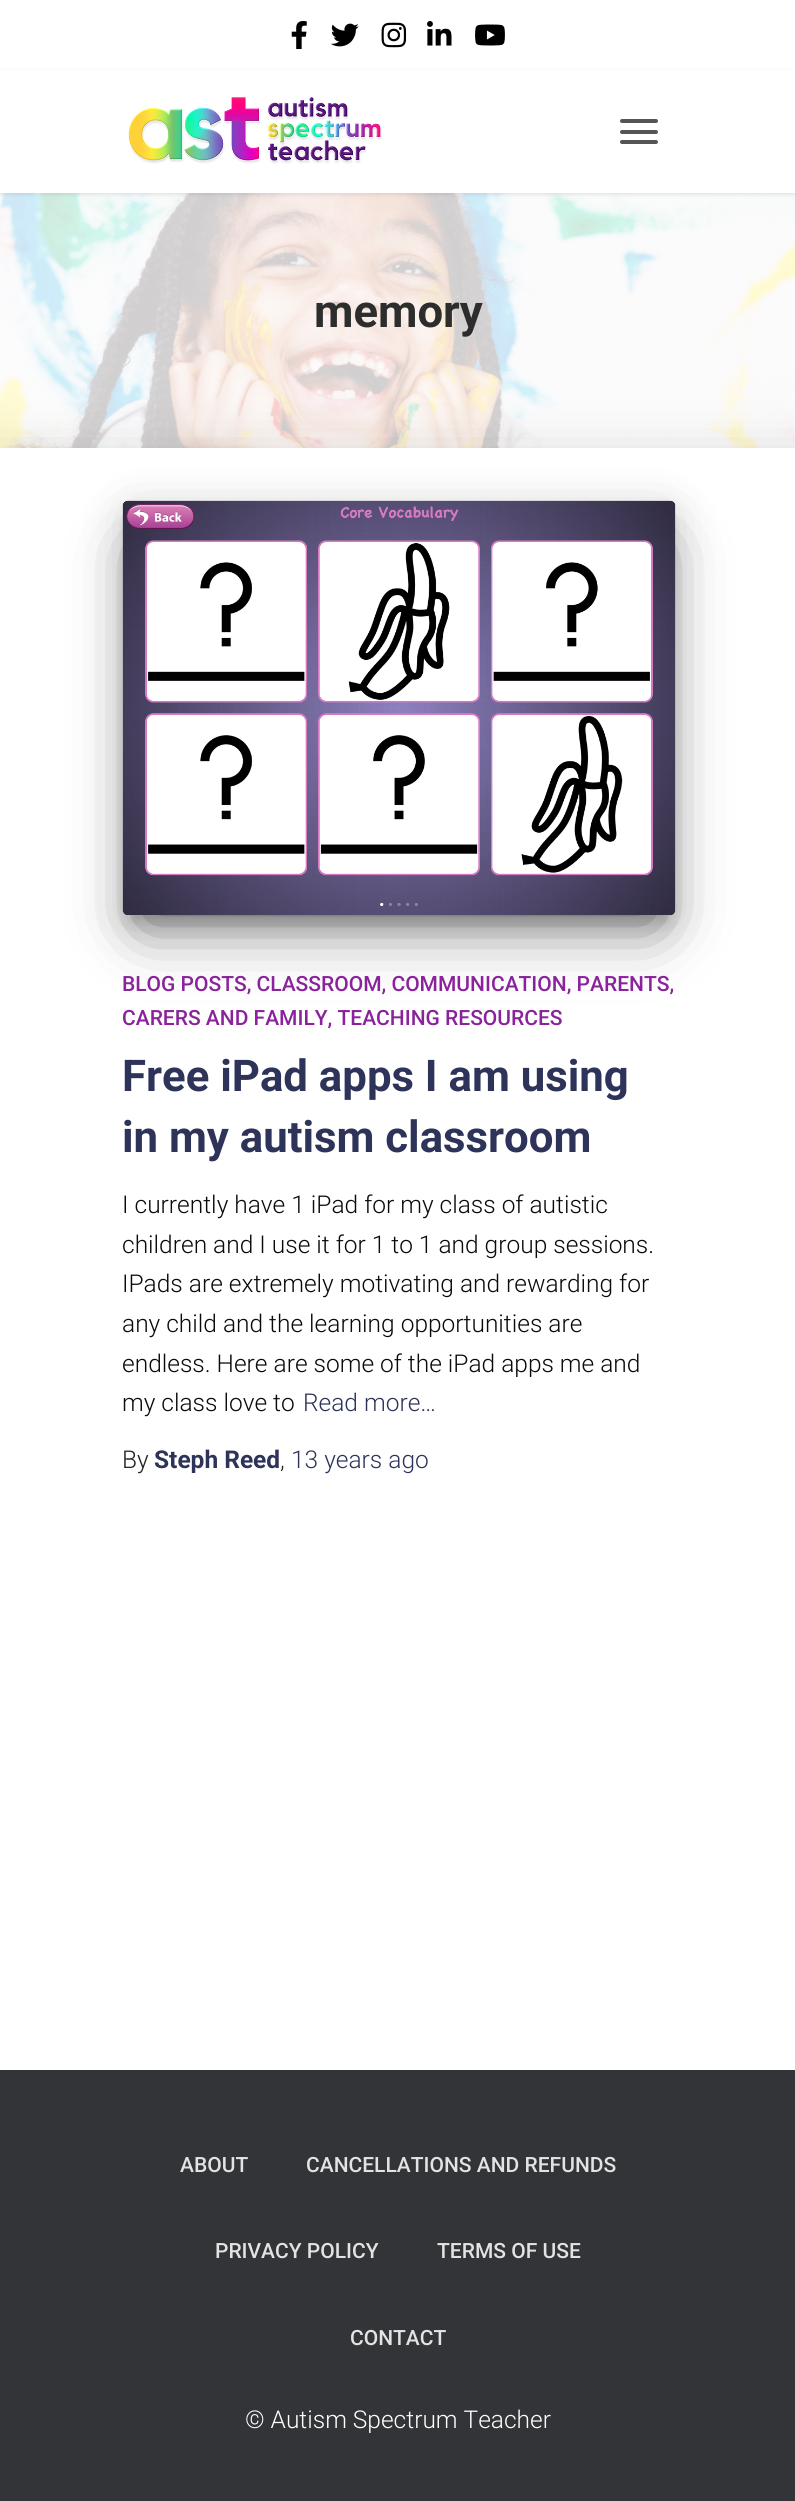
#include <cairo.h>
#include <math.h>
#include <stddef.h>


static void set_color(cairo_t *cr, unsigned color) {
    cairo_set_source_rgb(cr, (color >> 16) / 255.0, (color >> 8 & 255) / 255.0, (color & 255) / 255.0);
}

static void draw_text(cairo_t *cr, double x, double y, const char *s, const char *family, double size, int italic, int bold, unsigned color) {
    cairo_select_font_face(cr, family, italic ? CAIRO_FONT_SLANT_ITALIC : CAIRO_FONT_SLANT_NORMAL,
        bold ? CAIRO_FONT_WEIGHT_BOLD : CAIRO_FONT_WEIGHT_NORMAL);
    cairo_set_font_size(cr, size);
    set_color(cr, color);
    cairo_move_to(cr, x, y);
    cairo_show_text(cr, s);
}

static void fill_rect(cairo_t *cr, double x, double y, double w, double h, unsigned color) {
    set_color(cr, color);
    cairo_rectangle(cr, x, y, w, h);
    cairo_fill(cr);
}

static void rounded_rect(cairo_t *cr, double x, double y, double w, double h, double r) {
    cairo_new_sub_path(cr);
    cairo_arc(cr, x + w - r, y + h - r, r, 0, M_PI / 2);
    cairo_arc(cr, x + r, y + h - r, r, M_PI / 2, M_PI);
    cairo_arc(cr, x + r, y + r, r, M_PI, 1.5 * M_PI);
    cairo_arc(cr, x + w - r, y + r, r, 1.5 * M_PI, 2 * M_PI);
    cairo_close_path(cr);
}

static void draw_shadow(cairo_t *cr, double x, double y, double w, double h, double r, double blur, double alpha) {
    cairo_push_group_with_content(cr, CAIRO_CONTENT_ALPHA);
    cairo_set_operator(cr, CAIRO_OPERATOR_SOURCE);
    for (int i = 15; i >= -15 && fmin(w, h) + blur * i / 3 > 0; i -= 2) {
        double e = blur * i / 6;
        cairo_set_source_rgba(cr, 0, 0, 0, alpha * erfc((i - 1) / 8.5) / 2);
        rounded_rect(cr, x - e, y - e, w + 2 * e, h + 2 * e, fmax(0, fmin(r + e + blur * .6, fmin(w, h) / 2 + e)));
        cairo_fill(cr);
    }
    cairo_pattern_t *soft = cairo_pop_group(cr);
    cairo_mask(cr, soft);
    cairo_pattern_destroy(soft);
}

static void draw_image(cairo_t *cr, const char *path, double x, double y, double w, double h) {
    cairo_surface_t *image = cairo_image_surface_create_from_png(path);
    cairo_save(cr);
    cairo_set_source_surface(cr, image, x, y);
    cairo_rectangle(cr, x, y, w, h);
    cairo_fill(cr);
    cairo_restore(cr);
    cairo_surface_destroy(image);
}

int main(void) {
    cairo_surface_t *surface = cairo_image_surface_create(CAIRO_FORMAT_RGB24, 795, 2501);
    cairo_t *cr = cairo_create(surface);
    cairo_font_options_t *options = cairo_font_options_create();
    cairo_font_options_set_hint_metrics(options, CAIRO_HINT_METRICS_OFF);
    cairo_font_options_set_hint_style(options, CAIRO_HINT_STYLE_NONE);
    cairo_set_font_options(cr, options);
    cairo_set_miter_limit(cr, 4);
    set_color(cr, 0xFFFFFF);
    cairo_paint(cr);
    draw_image(cr, "assets/img1.png", 291, 21, 16, 28);
    draw_image(cr, "assets/img2.png", 331, 23, 28, 24);
    draw_image(cr, "assets/img3.png", 381, 22, 26, 26);
    draw_image(cr, "assets/img4.png", 427, 21, 25, 25);
    draw_image(cr, "assets/img5.png", 475, 24, 30, 22);
    draw_image(cr, "assets/img7.png", 0, 193, 795, 255);
    set_color(cr, 0x000000);
    draw_shadow(cr, 0, 72, 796, 122, 0, 2.5, 0.12);
    fill_rect(cr, 0, 70, 795, 123, 0xFFFFFF);
    draw_image(cr, "assets/img6.png", 128, 97, 254, 67);
    set_color(cr, 0x555555);
    rounded_rect(cr, 620, 119, 38, 4, 2);
    cairo_fill(cr);
    rounded_rect(cr, 620, 130, 38, 4, 2);
    cairo_fill(cr);
    rounded_rect(cr, 620, 140, 38, 4, 2);
    cairo_fill(cr);
    draw_text(cr, 314, 327, "memory", "Roboto", 45.5, 0, 1, 0x2D2D2D);
    set_color(cr, 0x000000);
    draw_shadow(cr, -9, 450, 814, 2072, 0, 26, 0.12);
    fill_rect(cr, 0, 448, 795, 1622, 0xFFFFFF);
    set_color(cr, 0x000000);
    draw_shadow(cr, 131, 523, 536, 398, 0, 9, 0.2);
    draw_shadow(cr, 123, 508, 553, 414, 5, 22, 0.12);
    draw_shadow(cr, 144, 550, 511, 372, 0, 33, 0.56);
    draw_image(cr, "assets/img8.png", 122, 500, 554, 415);
    draw_text(cr, 122, 991, "BLOG POSTS, CLASSROOM, COMMUNICATION, PARENTS,", "Roboto Medium", 21, 0, 0, 0x89229B);
    draw_text(cr, 122, 1025, "CARERS AND FAMILY, TEACHING RESOURCES", "Roboto Medium", 21, 0, 0, 0x89229B);
    draw_text(cr, 122, 1091, "Free iPad apps I am using", "Roboto", 43.75, 0, 1, 0x2D3359);
    draw_text(cr, 122, 1152, "in my autism classroom", "Roboto", 43.75, 0, 1, 0x2D3359);
    draw_text(cr, 122, 1213, "I currently have 1 iPad for my class of autistic", "Roboto Light", 24.5, 0, 0, 0x0A0A0A);
    draw_text(cr, 122, 1253, "children and I use it for 1 to 1 and group sessions.", "Roboto Light", 24.5, 0, 0, 0x0A0A0A);
    draw_text(cr, 122, 1292, "IPads are extremely motivating and rewarding for", "Roboto Light", 24.5, 0, 0, 0x0A0A0A);
    draw_text(cr, 122, 1332, "any child and the learning opportunities are", "Roboto Light", 24.5, 0, 0, 0x0A0A0A);
    draw_text(cr, 122, 1372, "endless. Here are some of the iPad apps me and", "Roboto Light", 24.5, 0, 0, 0x0A0A0A);
    draw_text(cr, 122, 1411, "my class love to", "Roboto Light", 24.5, 0, 0, 0x0A0A0A);
    draw_text(cr, 303, 1411, "Read more…", "Roboto Light", 24.5, 0, 0, 0x2D3359);
    draw_text(cr, 122, 1468, "By", "Roboto Light", 24.5, 0, 0, 0x212121);
    draw_text(cr, 154, 1468, "Steph Reed", "Roboto", 24.5, 0, 1, 0x2D3359);
    draw_text(cr, 280, 1468, ",", "Roboto Light", 24.5, 0, 0, 0x212121);
    draw_text(cr, 291, 1468, "13 years ago", "Roboto Light", 24.5, 0, 0, 0x2D3359);
    fill_rect(cr, 0, 2070, 795, 431, 0x323437);
    draw_text(cr, 180, 2172, "ABOUT", "Roboto Medium", 21, 0, 0, 0xE2E3E3);
    draw_text(cr, 306, 2172, "CANCELLATIONS AND REFUNDS", "Roboto Medium", 21, 0, 0, 0xE2E3E3);
    draw_text(cr, 215, 2258, "PRIVACY POLICY", "Roboto Medium", 21, 0, 0, 0xE2E3E3);
    draw_text(cr, 437, 2258, "TERMS OF USE", "Roboto Medium", 21, 0, 0, 0xE2E3E3);
    draw_text(cr, 350, 2345, "CONTACT", "Roboto Medium", 21, 0, 0, 0xE2E3E3);
    draw_text(cr, 245, 2428, "© Autism Spectrum Teacher", "Roboto Light", 24.5, 0, 0, 0xFFFFFF);
    cairo_surface_write_to_png(surface, "output.png");
    cairo_font_options_destroy(options);
    cairo_destroy(cr);
    cairo_surface_destroy(surface);
    return 0;
}
